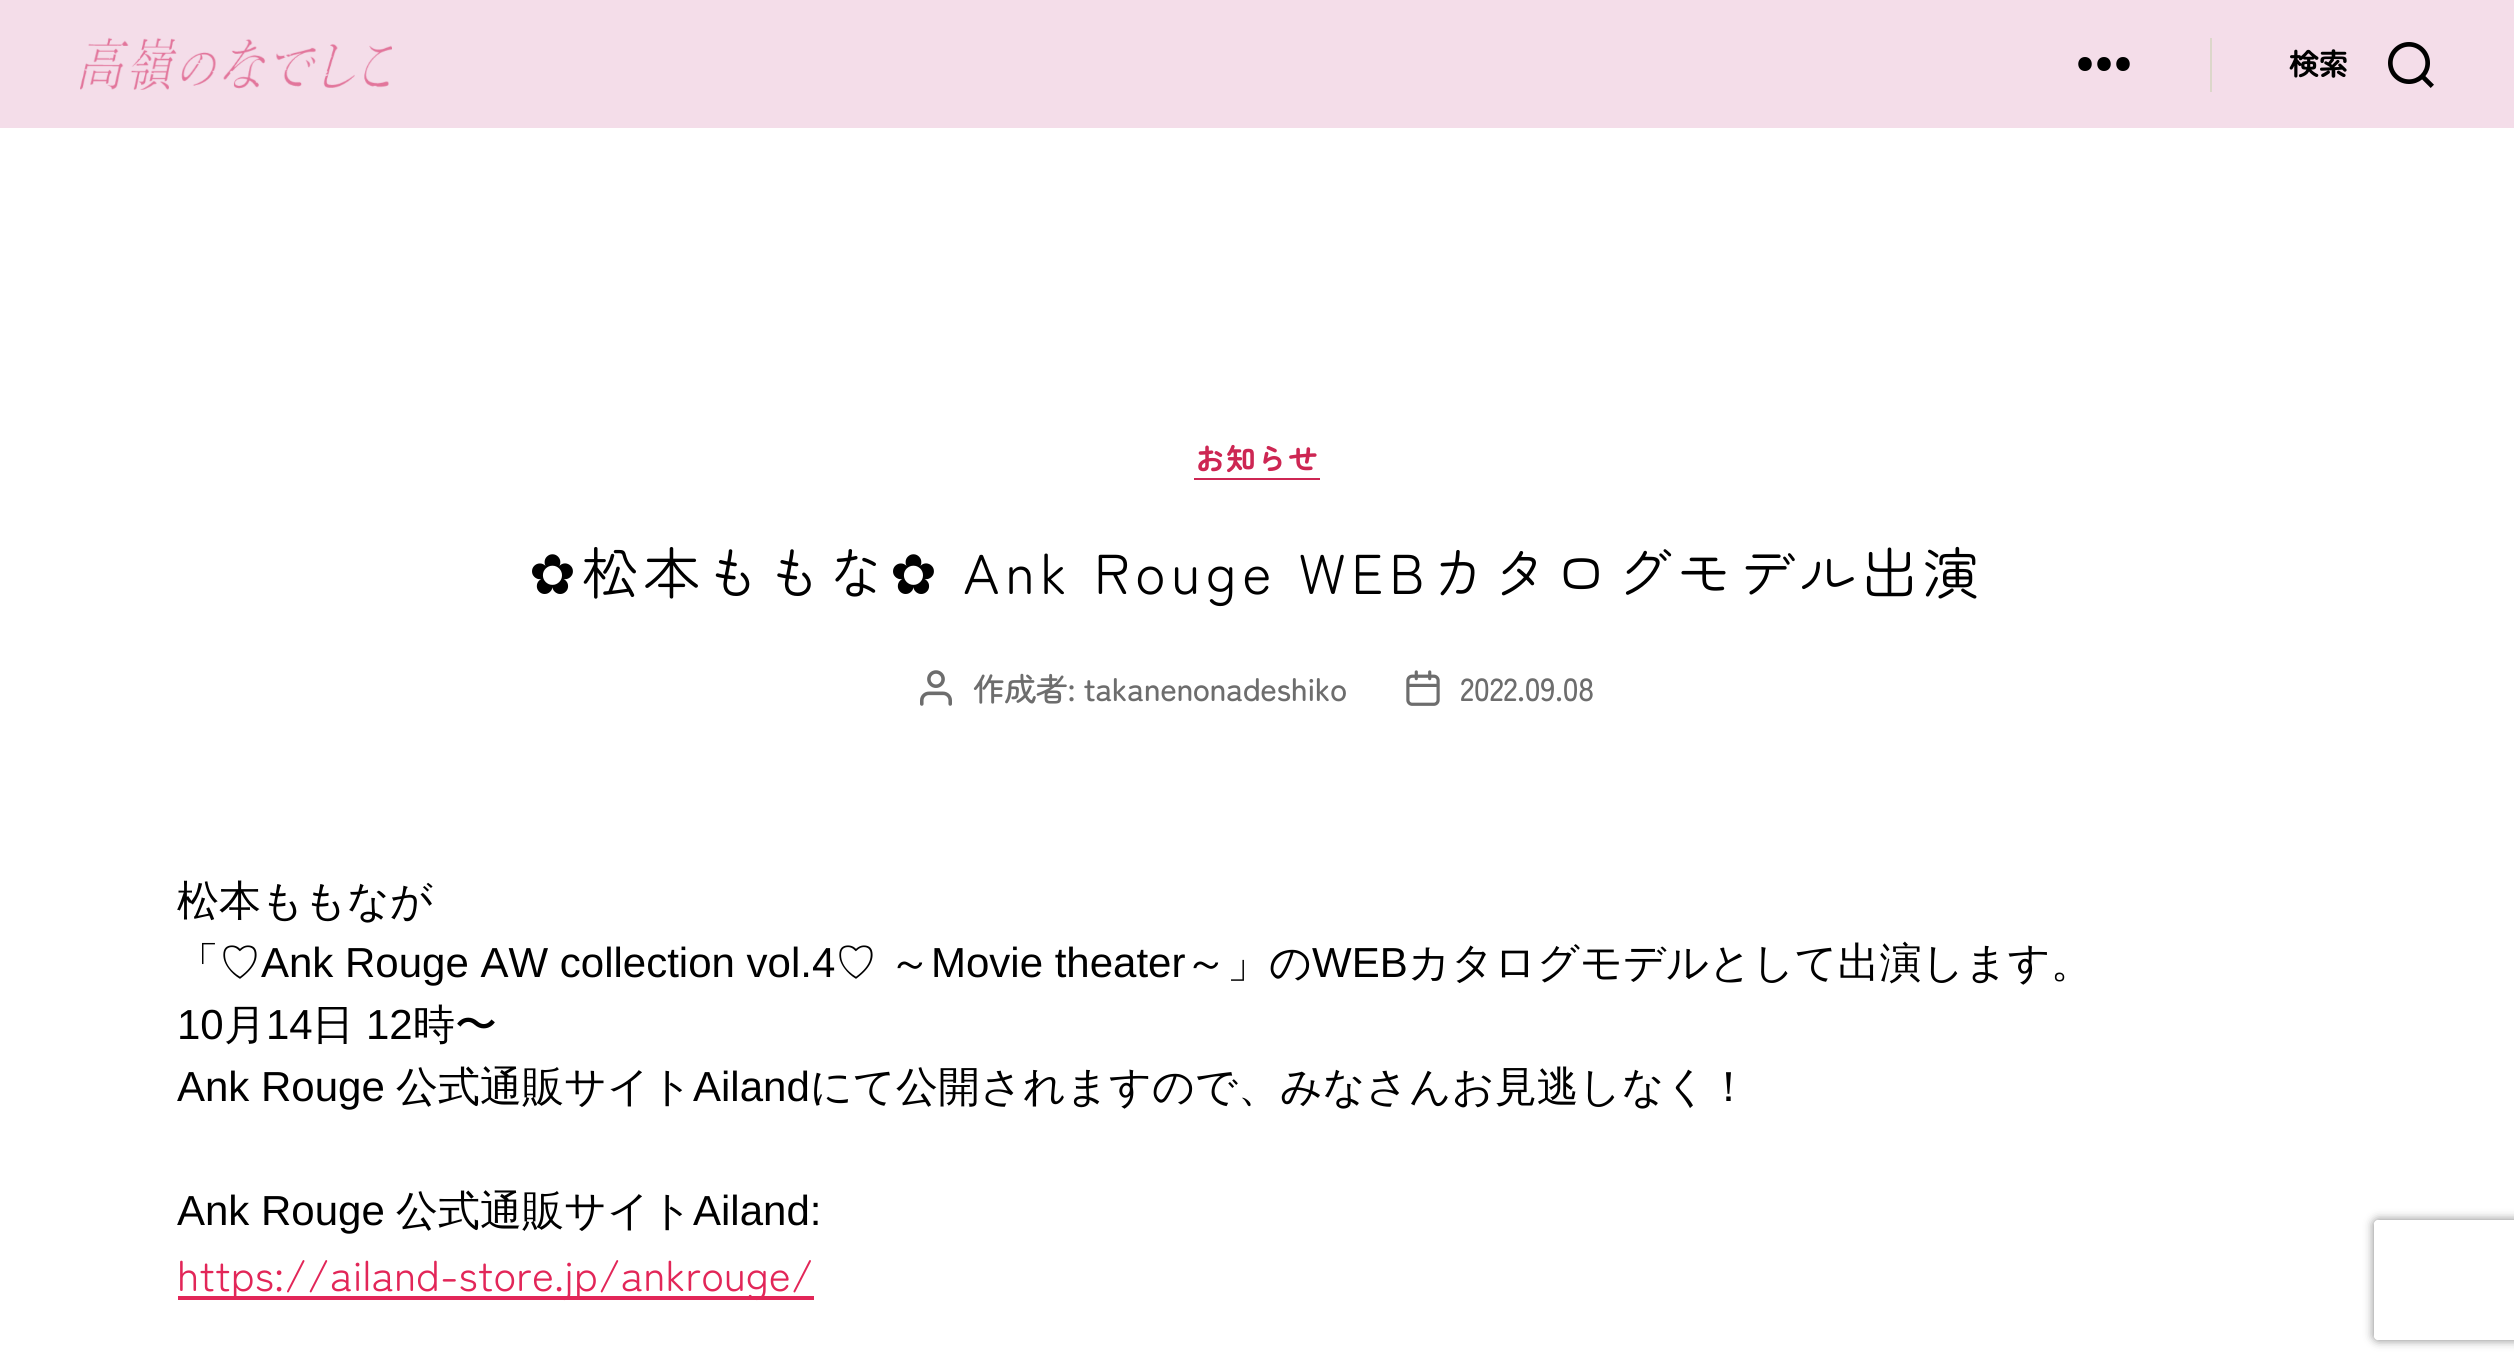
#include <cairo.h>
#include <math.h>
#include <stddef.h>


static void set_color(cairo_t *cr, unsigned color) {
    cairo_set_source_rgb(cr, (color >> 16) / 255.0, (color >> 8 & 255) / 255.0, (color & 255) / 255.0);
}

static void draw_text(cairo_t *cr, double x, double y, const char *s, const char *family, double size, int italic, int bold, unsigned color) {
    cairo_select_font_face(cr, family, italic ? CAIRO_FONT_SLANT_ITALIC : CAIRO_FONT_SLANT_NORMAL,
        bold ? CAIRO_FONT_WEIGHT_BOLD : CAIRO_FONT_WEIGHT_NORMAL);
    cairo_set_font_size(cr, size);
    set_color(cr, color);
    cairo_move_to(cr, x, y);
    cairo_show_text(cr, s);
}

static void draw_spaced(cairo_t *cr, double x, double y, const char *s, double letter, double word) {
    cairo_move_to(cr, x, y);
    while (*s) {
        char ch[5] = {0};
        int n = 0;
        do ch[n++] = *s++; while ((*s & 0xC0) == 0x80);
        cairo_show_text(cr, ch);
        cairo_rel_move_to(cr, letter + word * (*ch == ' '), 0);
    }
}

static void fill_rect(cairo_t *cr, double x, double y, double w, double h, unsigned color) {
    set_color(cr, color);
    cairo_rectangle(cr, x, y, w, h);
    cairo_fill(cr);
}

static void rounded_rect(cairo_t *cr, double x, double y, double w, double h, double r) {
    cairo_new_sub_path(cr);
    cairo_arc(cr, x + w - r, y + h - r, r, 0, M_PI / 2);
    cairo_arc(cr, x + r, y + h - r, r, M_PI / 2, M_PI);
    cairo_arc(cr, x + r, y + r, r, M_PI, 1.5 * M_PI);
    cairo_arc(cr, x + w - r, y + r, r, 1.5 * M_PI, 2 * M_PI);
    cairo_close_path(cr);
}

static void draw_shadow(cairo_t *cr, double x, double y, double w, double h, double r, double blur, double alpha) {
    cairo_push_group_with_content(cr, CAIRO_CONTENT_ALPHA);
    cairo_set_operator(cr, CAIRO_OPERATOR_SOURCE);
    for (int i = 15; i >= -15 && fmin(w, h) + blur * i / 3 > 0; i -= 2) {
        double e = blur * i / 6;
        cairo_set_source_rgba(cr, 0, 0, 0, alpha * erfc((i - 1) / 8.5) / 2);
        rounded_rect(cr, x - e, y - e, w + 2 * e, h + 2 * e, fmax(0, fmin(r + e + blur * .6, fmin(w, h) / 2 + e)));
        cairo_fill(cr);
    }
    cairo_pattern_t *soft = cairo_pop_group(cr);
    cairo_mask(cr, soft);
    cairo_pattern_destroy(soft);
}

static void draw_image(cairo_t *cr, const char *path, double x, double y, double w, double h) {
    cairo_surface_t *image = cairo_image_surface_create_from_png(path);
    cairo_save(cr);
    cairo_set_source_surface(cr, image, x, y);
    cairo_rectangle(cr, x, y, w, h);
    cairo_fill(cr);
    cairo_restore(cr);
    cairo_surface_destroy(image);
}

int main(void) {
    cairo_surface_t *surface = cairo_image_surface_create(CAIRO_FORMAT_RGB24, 2514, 1367);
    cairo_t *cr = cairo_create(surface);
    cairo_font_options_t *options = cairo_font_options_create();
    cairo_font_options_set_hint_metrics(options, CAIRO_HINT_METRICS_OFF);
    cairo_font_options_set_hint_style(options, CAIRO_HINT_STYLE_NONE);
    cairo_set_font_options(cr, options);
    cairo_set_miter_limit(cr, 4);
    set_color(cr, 0xFFFFFF);
    cairo_paint(cr);
    fill_rect(cr, 0, 0, 2514, 128, 0xF4DDE9);
    draw_image(cr, "assets/img1.png", 80, 37, 312, 53);
    set_color(cr, 0x000000);
    cairo_set_fill_rule(cr, CAIRO_FILL_RULE_EVEN_ODD);
    cairo_new_path(cr);
    cairo_move_to(cr, 2085, 71);
    cairo_curve_to(cr, 2076, 71, 2076, 57, 2085, 57);
    cairo_curve_to(cr, 2094, 57, 2094, 71, 2085, 71);
    cairo_close_path(cr);
    cairo_move_to(cr, 2104, 71);
    cairo_curve_to(cr, 2095, 71, 2095, 57, 2104, 57);
    cairo_curve_to(cr, 2113, 57, 2113, 71, 2104, 71);
    cairo_close_path(cr);
    cairo_move_to(cr, 2123, 71);
    cairo_curve_to(cr, 2114, 71, 2114, 57, 2123, 57);
    cairo_curve_to(cr, 2132, 57, 2132, 71, 2123, 71);
    cairo_close_path(cr);
    cairo_fill(cr);
    fill_rect(cr, 2210, 38, 2, 54, 0xDCD7CA);
    cairo_select_font_face(cr, "Zen Maru Gothic", CAIRO_FONT_SLANT_NORMAL, CAIRO_FONT_WEIGHT_BOLD);
    cairo_set_font_size(cr, 30);
    set_color(cr, 0x000000);
    draw_spaced(cr, 2289, 75, "検索", -0.5, 0);
    draw_image(cr, "assets/img2.png", 2388, 42, 46, 46);
    fill_rect(cr, 1194, 478, 126, 2, 0xCD2653);
    draw_spaced(cr, 1195, 470, "お知らせ", 1, 0);
    cairo_select_font_face(cr, "DejaVu Sans", CAIRO_FONT_SLANT_NORMAL, CAIRO_FONT_WEIGHT_NORMAL);
    cairo_set_font_size(cr, 56);
    set_color(cr, 0x000000);
    draw_spaced(cr, 529, 594, "✿", 5.6, 0);
    cairo_select_font_face(cr, "Zen Maru Gothic", CAIRO_FONT_SLANT_NORMAL, CAIRO_FONT_WEIGHT_NORMAL);
    draw_spaced(cr, 582, 594, "松本ももな", 5.6, 0);
    cairo_select_font_face(cr, "DejaVu Sans", CAIRO_FONT_SLANT_NORMAL, CAIRO_FONT_WEIGHT_NORMAL);
    draw_spaced(cr, 890, 594, "✿", 5.6, 0);
    cairo_select_font_face(cr, "Zen Maru Gothic", CAIRO_FONT_SLANT_NORMAL, CAIRO_FONT_WEIGHT_NORMAL);
    draw_spaced(cr, 963, 594, "Ank Rouge WEBカタログモデル出演", 5.6, 0);
    draw_image(cr, "assets/img3.png", 920, 670, 32, 36);
    cairo_select_font_face(cr, "Zen Maru Gothic Medium", CAIRO_FONT_SLANT_NORMAL, CAIRO_FONT_WEIGHT_NORMAL);
    cairo_set_font_size(cr, 32);
    set_color(cr, 0x6D6D6D);
    draw_spaced(cr, 973, 701, "作成者: takanenonadeshiko", -0.5, 0);
    draw_image(cr, "assets/img4.png", 1406, 670, 34, 36);
    draw_spaced(cr, 1460, 701, "2022.09.08", -0.5, 0);
    draw_text(cr, 177, 915, "松本ももなが", "WenQuanYi Zen Hei Medium", 42, 0, 0, 0x000000);
    draw_text(cr, 177, 977, "「♡", "WenQuanYi Zen Hei Medium", 42, 0, 0, 0x000000);
    draw_text(cr, 261, 977, "Ank Rouge AW collection vol.4", "Liberation Sans", 42, 0, 0, 0x000000);
    draw_text(cr, 835, 977, "♡", "WenQuanYi Zen Hei Medium", 42, 0, 0, 0x000000);
    draw_text(cr, 889, 977, "～", "WenQuanYi Zen Hei Medium", 42, 0, 0, 0x000000);
    draw_text(cr, 931, 977, "Movie theater", "Liberation Sans", 42, 0, 0, 0x000000);
    draw_text(cr, 1185, 977, "～」の", "WenQuanYi Zen Hei Medium", 42, 0, 0, 0x000000);
    draw_text(cr, 1312, 977, "WEB", "Liberation Sans", 42, 0, 0, 0x000000);
    draw_text(cr, 1408, 977, "カタログモデルとして出演します。", "WenQuanYi Zen Hei Medium", 42, 0, 0, 0x000000);
    draw_text(cr, 177, 1039, "10", "Liberation Sans", 42, 0, 0, 0x000000);
    draw_text(cr, 224, 1039, "月", "WenQuanYi Zen Hei Medium", 42, 0, 0, 0x000000);
    draw_text(cr, 266, 1039, "14", "Liberation Sans", 42, 0, 0, 0x000000);
    draw_text(cr, 312, 1039, "日", "WenQuanYi Zen Hei Medium", 42, 0, 0, 0x000000);
    draw_text(cr, 366, 1039, "12", "Liberation Sans", 42, 0, 0, 0x000000);
    draw_text(cr, 413, 1039, "時〜", "WenQuanYi Zen Hei Medium", 42, 0, 0, 0x000000);
    draw_text(cr, 177, 1101, "Ank Rouge", "Liberation Sans", 42, 0, 0, 0x000000);
    draw_text(cr, 396, 1101, "公式通販サイト", "WenQuanYi Zen Hei Medium", 42, 0, 0, 0x000000);
    draw_text(cr, 693, 1101, "Ailand", "Liberation Sans", 42, 0, 0, 0x000000);
    draw_text(cr, 810, 1101, "にて公開されますので、みなさんお見逃しなく！", "WenQuanYi Zen Hei Medium", 42, 0, 0, 0x000000);
    draw_text(cr, 177, 1225, "Ank Rouge", "Liberation Sans", 42, 0, 0, 0x000000);
    draw_text(cr, 396, 1225, "公式通販サイト", "WenQuanYi Zen Hei Medium", 42, 0, 0, 0x000000);
    draw_text(cr, 693, 1225, "Ailand:", "Liberation Sans", 42, 0, 0, 0x000000);
    fill_rect(cr, 178, 1296, 636, 4, 0xE22658);
    draw_text(cr, 177, 1291, "https://ailand-store.jp/ankrouge/", "Zen Maru Gothic", 42, 0, 0, 0xE22658);
    cairo_save(cr);
    cairo_new_path(cr);
    cairo_move_to(cr, 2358, 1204);
    cairo_line_to(cr, 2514, 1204);
    cairo_line_to(cr, 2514, 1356);
    cairo_line_to(cr, 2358, 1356);
    cairo_close_path(cr);
    cairo_move_to(cr, 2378, 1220);
    cairo_line_to(cr, 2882, 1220);
    cairo_curve_to(cr, 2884, 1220, 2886, 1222, 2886, 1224);
    cairo_line_to(cr, 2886, 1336);
    cairo_curve_to(cr, 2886, 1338, 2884, 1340, 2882, 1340);
    cairo_line_to(cr, 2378, 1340);
    cairo_curve_to(cr, 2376, 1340, 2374, 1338, 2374, 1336);
    cairo_line_to(cr, 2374, 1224);
    cairo_curve_to(cr, 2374, 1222, 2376, 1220, 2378, 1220);
    cairo_close_path(cr);
    cairo_clip(cr);
    set_color(cr, 0x808080);
    draw_shadow(cr, 2374, 1220, 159, 120, 4, 5, 1);
    cairo_restore(cr);
    cairo_surface_write_to_png(surface, "output.png");
    cairo_font_options_destroy(options);
    cairo_destroy(cr);
    cairo_surface_destroy(surface);
    return 0;
}
